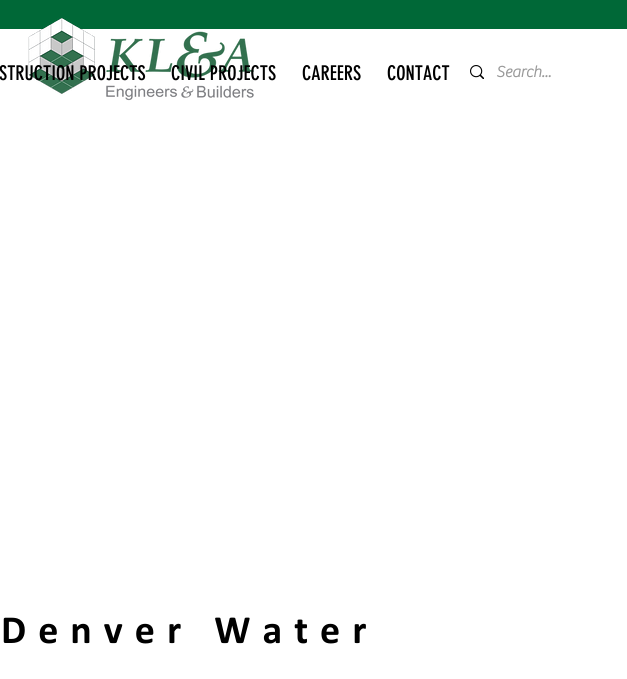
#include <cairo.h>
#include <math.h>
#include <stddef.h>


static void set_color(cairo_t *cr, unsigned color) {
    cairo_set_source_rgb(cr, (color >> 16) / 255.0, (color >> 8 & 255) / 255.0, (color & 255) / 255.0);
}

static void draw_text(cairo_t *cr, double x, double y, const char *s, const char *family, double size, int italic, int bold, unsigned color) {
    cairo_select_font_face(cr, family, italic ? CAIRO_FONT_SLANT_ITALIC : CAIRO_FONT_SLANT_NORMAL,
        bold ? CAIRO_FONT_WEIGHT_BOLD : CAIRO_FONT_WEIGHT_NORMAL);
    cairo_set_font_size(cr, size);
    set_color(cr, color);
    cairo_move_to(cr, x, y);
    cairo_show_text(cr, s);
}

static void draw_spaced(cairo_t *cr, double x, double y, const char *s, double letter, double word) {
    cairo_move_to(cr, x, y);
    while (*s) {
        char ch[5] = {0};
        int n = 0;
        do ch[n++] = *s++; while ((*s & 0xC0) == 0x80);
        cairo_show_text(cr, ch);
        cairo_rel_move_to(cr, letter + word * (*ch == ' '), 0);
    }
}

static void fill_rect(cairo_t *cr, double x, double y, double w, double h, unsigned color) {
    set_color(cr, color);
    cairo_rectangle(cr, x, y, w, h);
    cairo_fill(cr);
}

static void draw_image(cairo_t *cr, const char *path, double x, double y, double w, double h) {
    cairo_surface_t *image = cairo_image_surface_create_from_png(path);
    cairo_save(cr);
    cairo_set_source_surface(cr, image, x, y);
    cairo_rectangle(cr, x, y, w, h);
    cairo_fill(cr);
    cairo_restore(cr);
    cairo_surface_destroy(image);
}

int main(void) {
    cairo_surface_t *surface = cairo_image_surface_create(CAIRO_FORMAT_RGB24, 627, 679);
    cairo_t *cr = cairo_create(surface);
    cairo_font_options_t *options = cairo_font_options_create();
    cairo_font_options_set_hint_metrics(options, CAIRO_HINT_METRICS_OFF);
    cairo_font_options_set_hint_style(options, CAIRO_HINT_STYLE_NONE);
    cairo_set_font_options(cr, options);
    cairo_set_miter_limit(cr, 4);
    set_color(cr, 0xFFFFFF);
    cairo_paint(cr);
    fill_rect(cr, 0, 0, 627, 29, 0x006837);
    draw_image(cr, "assets/img1.png", 28, 17, 226, 84);
    draw_text(cr, -1, 80, "STRUCTION PROJECTS", "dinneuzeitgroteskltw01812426", 20, 0, 0, 0x000000);
    draw_text(cr, 171, 80, "CIVIL PROJECTS", "dinneuzeitgroteskltw01812426", 20, 0, 0, 0x000000);
    draw_text(cr, 302, 80, "CAREERS", "dinneuzeitgroteskltw01812426", 20, 0, 0, 0x000000);
    draw_text(cr, 387, 80, "CONTACT", "dinneuzeitgroteskltw01812426", 20, 0, 0, 0x000000);
    draw_image(cr, "assets/img2.png", 470, 65, 14, 14);
    draw_text(cr, 496, 77, "Search...", "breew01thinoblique", 16, 0, 1, 0x999999);
    cairo_select_font_face(cr, "Calibri", CAIRO_FONT_SLANT_NORMAL, CAIRO_FONT_WEIGHT_BOLD);
    cairo_set_font_size(cr, 40);
    set_color(cr, 0x000000);
    draw_spaced(cr, 1, 643, "Denver Water", 12, 0);
    cairo_surface_write_to_png(surface, "output.png");
    cairo_font_options_destroy(options);
    cairo_destroy(cr);
    cairo_surface_destroy(surface);
    return 0;
}
